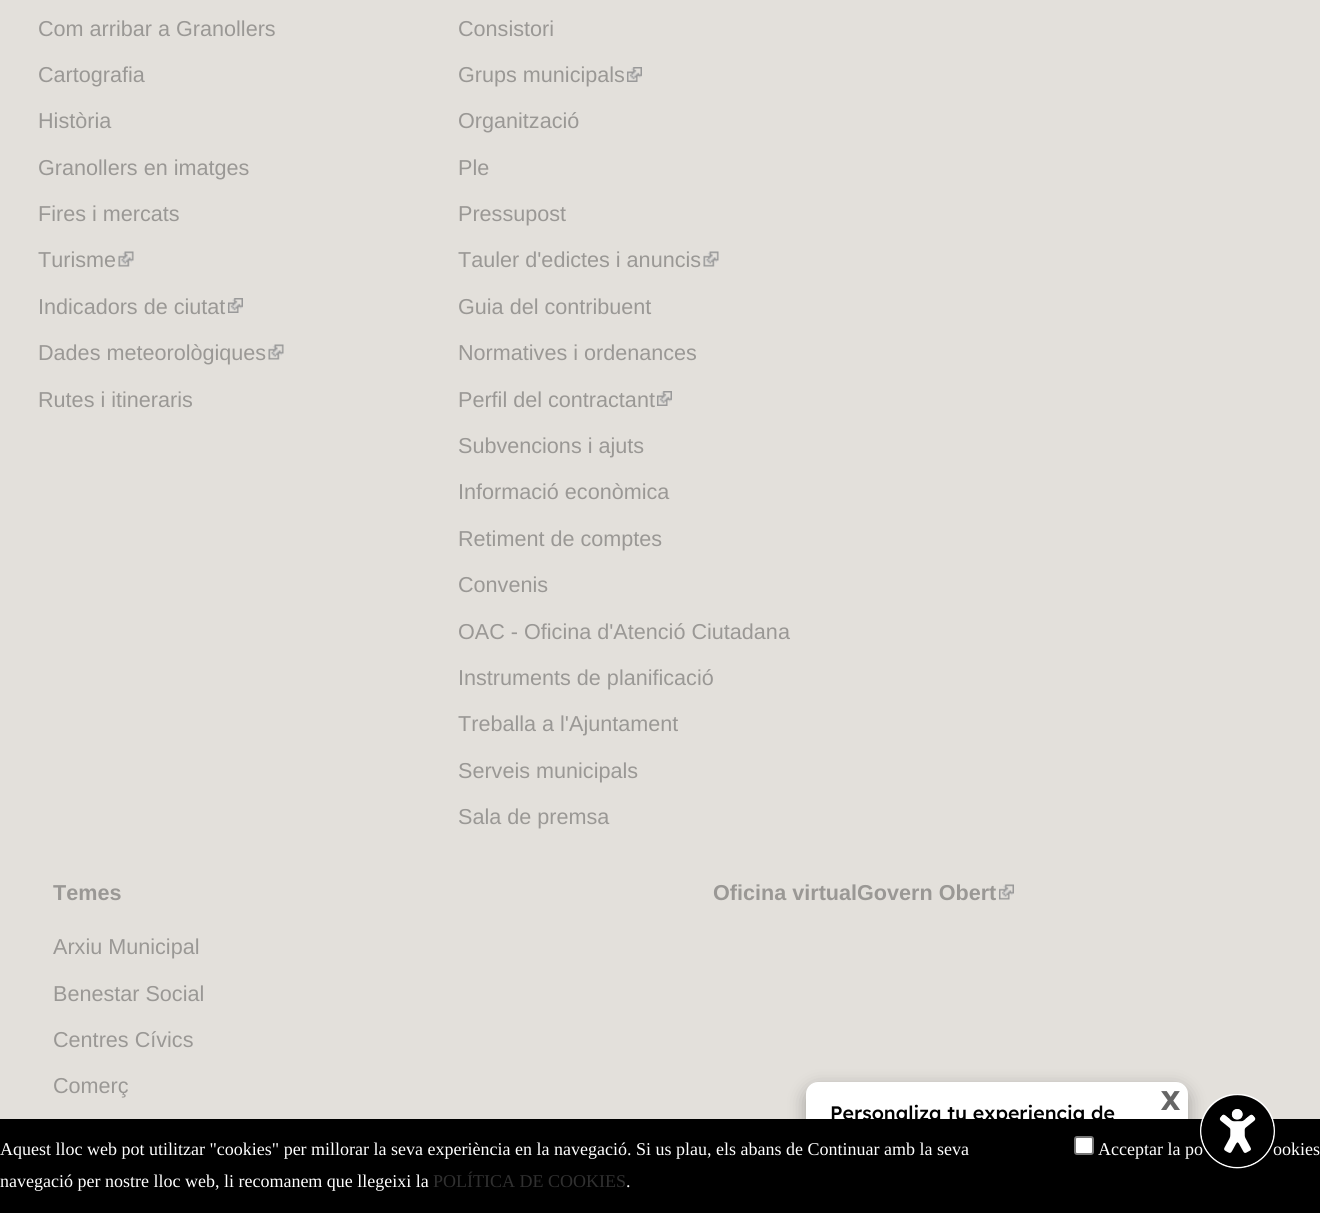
#include <cairo.h>
#include <math.h>
#include <stddef.h>


static void set_color(cairo_t *cr, unsigned color) {
    cairo_set_source_rgb(cr, (color >> 16) / 255.0, (color >> 8 & 255) / 255.0, (color & 255) / 255.0);
}

static void draw_text(cairo_t *cr, double x, double y, const char *s, const char *family, double size, int italic, int bold, unsigned color) {
    cairo_select_font_face(cr, family, italic ? CAIRO_FONT_SLANT_ITALIC : CAIRO_FONT_SLANT_NORMAL,
        bold ? CAIRO_FONT_WEIGHT_BOLD : CAIRO_FONT_WEIGHT_NORMAL);
    cairo_set_font_size(cr, size);
    set_color(cr, color);
    cairo_move_to(cr, x, y);
    cairo_show_text(cr, s);
}

static void fill_rect(cairo_t *cr, double x, double y, double w, double h, unsigned color) {
    set_color(cr, color);
    cairo_rectangle(cr, x, y, w, h);
    cairo_fill(cr);
}

static void rounded_rect(cairo_t *cr, double x, double y, double w, double h, double r) {
    cairo_new_sub_path(cr);
    cairo_arc(cr, x + w - r, y + h - r, r, 0, M_PI / 2);
    cairo_arc(cr, x + r, y + h - r, r, M_PI / 2, M_PI);
    cairo_arc(cr, x + r, y + r, r, M_PI, 1.5 * M_PI);
    cairo_arc(cr, x + w - r, y + r, r, 1.5 * M_PI, 2 * M_PI);
    cairo_close_path(cr);
}

static void draw_shadow(cairo_t *cr, double x, double y, double w, double h, double r, double blur, double alpha) {
    cairo_push_group_with_content(cr, CAIRO_CONTENT_ALPHA);
    cairo_set_operator(cr, CAIRO_OPERATOR_SOURCE);
    for (int i = 15; i >= -15 && fmin(w, h) + blur * i / 3 > 0; i -= 2) {
        double e = blur * i / 6;
        cairo_set_source_rgba(cr, 0, 0, 0, alpha * erfc((i - 1) / 8.5) / 2);
        rounded_rect(cr, x - e, y - e, w + 2 * e, h + 2 * e, fmax(0, fmin(r + e + blur * .6, fmin(w, h) / 2 + e)));
        cairo_fill(cr);
    }
    cairo_pattern_t *soft = cairo_pop_group(cr);
    cairo_mask(cr, soft);
    cairo_pattern_destroy(soft);
}

static void draw_image(cairo_t *cr, const char *path, double x, double y, double w, double h) {
    cairo_surface_t *image = cairo_image_surface_create_from_png(path);
    cairo_save(cr);
    cairo_set_source_surface(cr, image, x, y);
    cairo_rectangle(cr, x, y, w, h);
    cairo_fill(cr);
    cairo_restore(cr);
    cairo_surface_destroy(image);
}

int main(void) {
    cairo_surface_t *surface = cairo_image_surface_create(CAIRO_FORMAT_RGB24, 1320, 1213);
    cairo_t *cr = cairo_create(surface);
    cairo_font_options_t *options = cairo_font_options_create();
    cairo_font_options_set_hint_metrics(options, CAIRO_HINT_METRICS_OFF);
    cairo_font_options_set_hint_style(options, CAIRO_HINT_STYLE_NONE);
    cairo_set_font_options(cr, options);
    cairo_set_miter_limit(cr, 4);
    set_color(cr, 0xE3E0DB);
    cairo_paint(cr);
    draw_text(cr, 38, 36, "Com arribar a Granollers", "Liberation Sans", 21.6, 0, 0, 0x9A9895);
    draw_text(cr, 38, 82, "Cartografia", "Liberation Sans", 21.6, 0, 0, 0x9A9895);
    draw_text(cr, 38, 128, "Història", "Liberation Sans", 21.6, 0, 0, 0x9A9895);
    draw_text(cr, 38, 175, "Granollers en imatges", "Liberation Sans", 21.6, 0, 0, 0x9A9895);
    draw_text(cr, 38, 221, "Fires i mercats", "Liberation Sans", 21.6, 0, 0, 0x9A9895);
    draw_text(cr, 38, 267, "Turisme", "Liberation Sans", 21.6, 0, 0, 0x9A9895);
    draw_image(cr, "assets/img1.png", 118, 251, 16, 16);
    draw_text(cr, 38, 314, "Indicadors de ciutat", "Liberation Sans", 21.6, 0, 0, 0x9A9895);
    draw_image(cr, "assets/img2.png", 228, 298, 15, 15);
    draw_text(cr, 38, 360, "Dades meteorològiques", "Liberation Sans", 21.6, 0, 0, 0x9A9895);
    draw_image(cr, "assets/img1.png", 268, 344, 16, 16);
    draw_text(cr, 38, 407, "Rutes i itineraris", "Liberation Sans", 21.6, 0, 0, 0x9A9895);
    draw_text(cr, 458, 36, "Consistori", "Liberation Sans", 21.6, 0, 0, 0x9A9895);
    draw_text(cr, 458, 82, "Grups municipals", "Liberation Sans", 21.6, 0, 0, 0x9A9895);
    draw_image(cr, "assets/img2.png", 627, 67, 15, 15);
    draw_text(cr, 458, 128, "Organització", "Liberation Sans", 21.6, 0, 0, 0x9A9895);
    draw_text(cr, 458, 175, "Ple", "Liberation Sans", 21.6, 0, 0, 0x9A9895);
    draw_text(cr, 458, 221, "Pressupost", "Liberation Sans", 21.6, 0, 0, 0x9A9895);
    draw_text(cr, 458, 267, "Tauler d'edictes i anuncis", "Liberation Sans", 21.6, 0, 0, 0x9A9895);
    draw_image(cr, "assets/img3.png", 703, 251, 16, 16);
    draw_text(cr, 458, 314, "Guia del contribuent", "Liberation Sans", 21.6, 0, 0, 0x9A9895);
    draw_text(cr, 458, 360, "Normatives i ordenances", "Liberation Sans", 21.6, 0, 0, 0x9A9895);
    draw_text(cr, 458, 407, "Perfil del contractant", "Liberation Sans", 21.6, 0, 0, 0x9A9895);
    draw_image(cr, "assets/img2.png", 657, 391, 15, 15);
    draw_text(cr, 458, 453, "Subvencions i ajuts", "Liberation Sans", 21.6, 0, 0, 0x9A9895);
    draw_text(cr, 458, 499, "Informació econòmica", "Liberation Sans", 21.6, 0, 0, 0x9A9895);
    draw_text(cr, 458, 546, "Retiment de comptes", "Liberation Sans", 21.6, 0, 0, 0x9A9895);
    draw_text(cr, 458, 592, "Convenis", "Liberation Sans", 21.6, 0, 0, 0x9A9895);
    draw_text(cr, 458, 639, "OAC - Oficina d'Atenció Ciutadana", "Liberation Sans", 21.6, 0, 0, 0x9A9895);
    draw_text(cr, 458, 685, "Instruments de planificació", "Liberation Sans", 21.6, 0, 0, 0x9A9895);
    draw_text(cr, 458, 731, "Treballa a l'Ajuntament", "Liberation Sans", 21.6, 0, 0, 0x9A9895);
    draw_text(cr, 458, 778, "Serveis municipals", "Liberation Sans", 21.6, 0, 0, 0x9A9895);
    draw_text(cr, 458, 824, "Sala de premsa", "Liberation Sans", 21.6, 0, 0, 0x9A9895);
    draw_text(cr, 53, 900, "Temes", "Liberation Sans", 21.6, 0, 1, 0x9A9895);
    draw_text(cr, 53, 954, "Arxiu Municipal", "Liberation Sans", 21.6, 0, 0, 0x9A9895);
    draw_text(cr, 53, 1001, "Benestar Social", "Liberation Sans", 21.6, 0, 0, 0x9A9895);
    draw_text(cr, 53, 1047, "Centres Cívics", "Liberation Sans", 21.6, 0, 0, 0x9A9895);
    draw_text(cr, 53, 1093, "Comerç", "Liberation Sans", 21.6, 0, 0, 0x9A9895);
    draw_text(cr, 713, 900, "Oficina virtualGovern Obert", "Liberation Sans", 21.6, 0, 1, 0x9A9895);
    draw_image(cr, "assets/img4.png", 999, 884, 15, 16);
    set_color(cr, 0x000000);
    draw_shadow(cr, 806, 1088, 382, 102, 12, 9, 0.3);
    set_color(cr, 0xFFFFFF);
    rounded_rect(cr, 806, 1082, 382, 102, 12);
    cairo_fill(cr);
    draw_text(cr, 1161, 1110, "X", "Lexend", 27, 0, 1, 0x666666);
    draw_text(cr, 830, 1120, "Personaliza tu experiencia de", "Lexend Medium", 19.5, 0, 0, 0x000000);
    fill_rect(cr, 0, 1119, 1320, 94, 0x000000);
    draw_text(cr, 1098, 1155, "Acceptar la po", "Liberation Serif", 18, 0, 0, 0xFFFFFF);
    draw_text(cr, 1273, 1155, "ookies", "Liberation Serif", 18, 0, 0, 0xFFFFFF);
    draw_image(cr, "assets/img5.png", 1200, 1094, 75, 75);
    draw_text(cr, 0, 1155, "Aquest lloc web pot utilitzar \"cookies\" per millorar la seva experiència en la navegació. Si us plau, els abans de Continuar amb la seva", "Liberation Serif", 18, 0, 0, 0xFFFFFF);
    draw_text(cr, 0, 1187, "navegació per nostre lloc web, li recomanem que llegeixi la", "Liberation Serif", 18, 0, 0, 0xFFFFFF);
    draw_text(cr, 433, 1187, "POLÍTICA DE COOKIES", "Liberation Serif", 18, 0, 0, 0x303030);
    draw_text(cr, 626, 1187, ".", "Liberation Serif", 18, 0, 0, 0xFFFFFF);
    rounded_rect(cr, 1075, 1137, 18, 17, 2);
    cairo_fill_preserve(cr);
    set_color(cr, 0x767676);
    cairo_stroke(cr);
    cairo_surface_write_to_png(surface, "output.png");
    cairo_font_options_destroy(options);
    cairo_destroy(cr);
    cairo_surface_destroy(surface);
    return 0;
}
